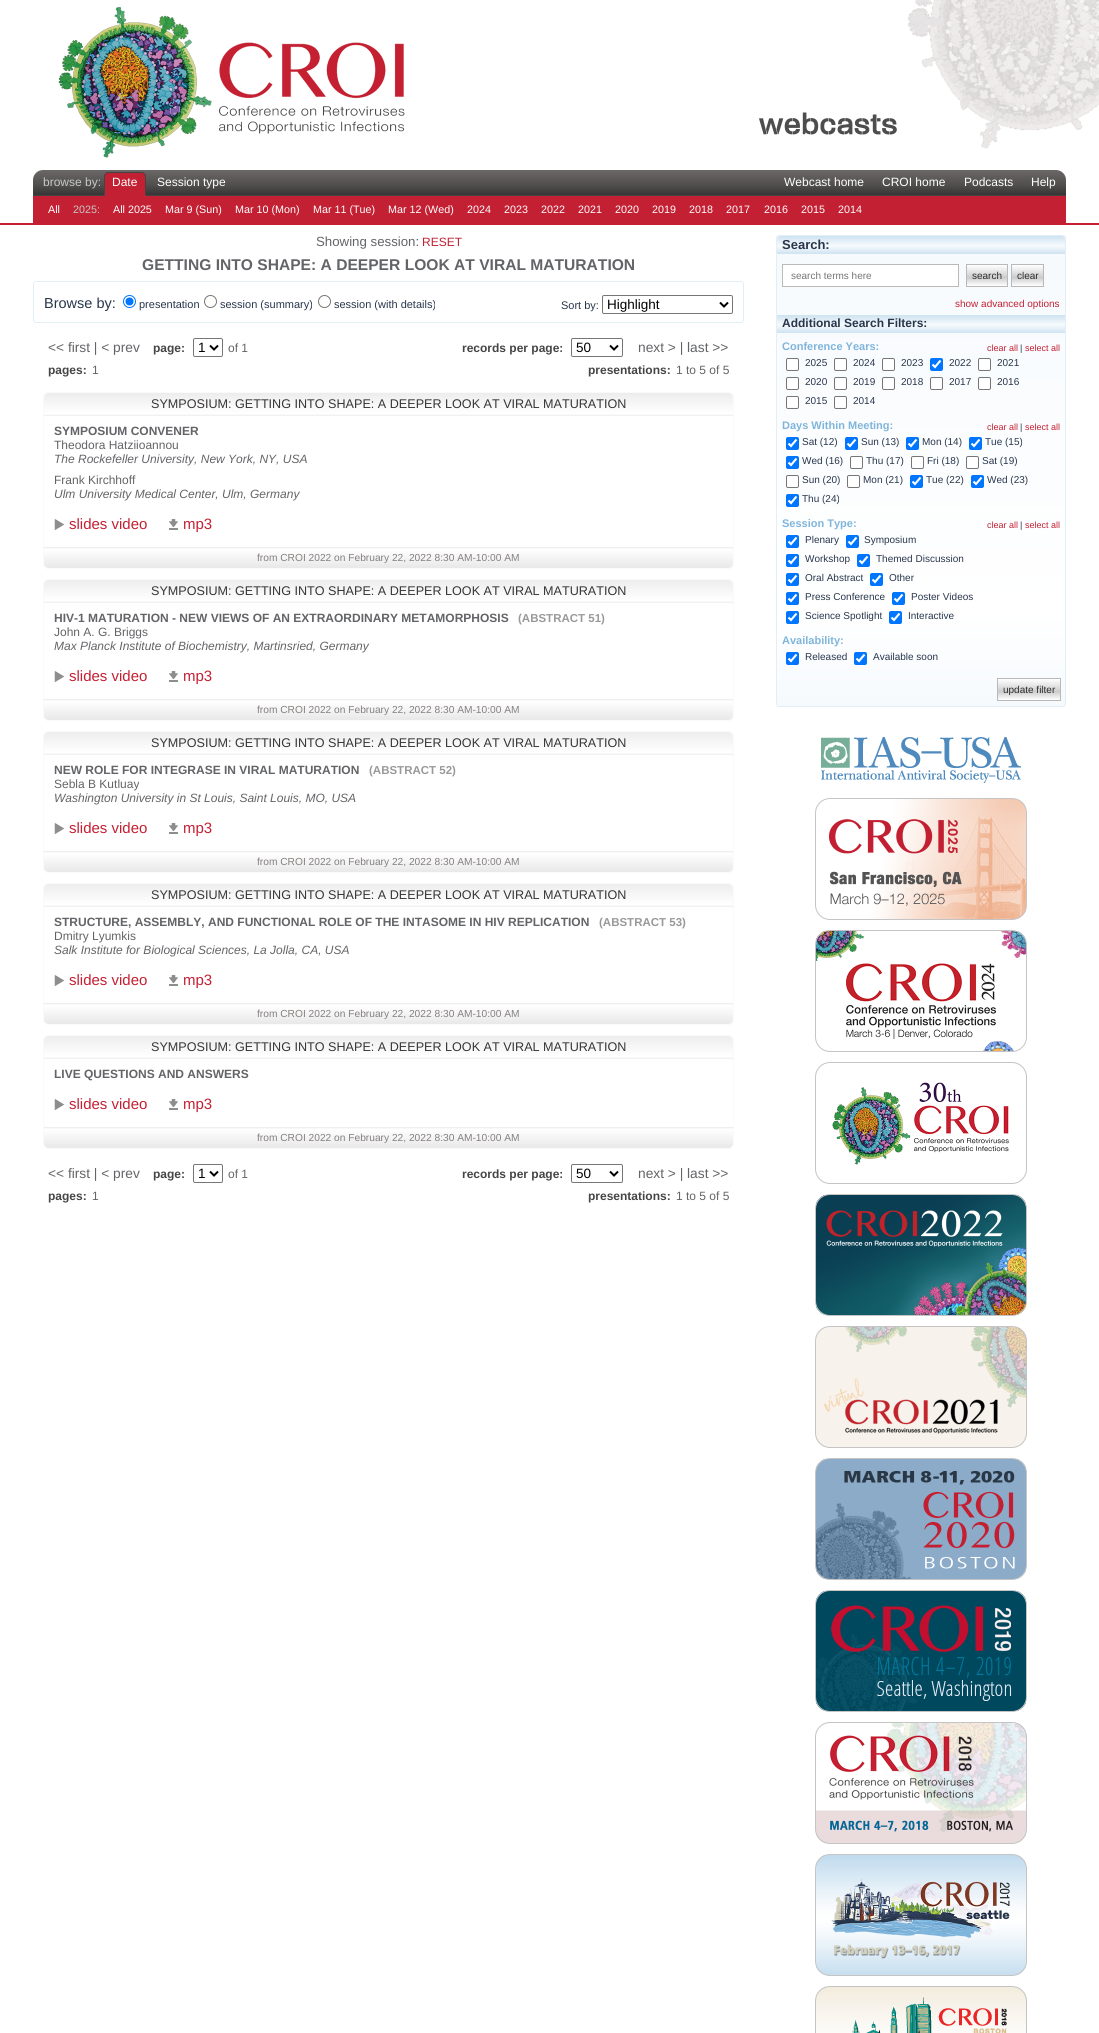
#include <cairo.h>
#include <math.h>
#include <stddef.h>


static void set_color(cairo_t *cr, unsigned color) {
    cairo_set_source_rgb(cr, (color >> 16) / 255.0, (color >> 8 & 255) / 255.0, (color & 255) / 255.0);
}

static void draw_text(cairo_t *cr, double x, double y, const char *s, const char *family, double size, int italic, int bold, unsigned color) {
    cairo_select_font_face(cr, family, italic ? CAIRO_FONT_SLANT_ITALIC : CAIRO_FONT_SLANT_NORMAL,
        bold ? CAIRO_FONT_WEIGHT_BOLD : CAIRO_FONT_WEIGHT_NORMAL);
    cairo_set_font_size(cr, size);
    set_color(cr, color);
    cairo_move_to(cr, x, y);
    cairo_show_text(cr, s);
}

static void fill_rect(cairo_t *cr, double x, double y, double w, double h, unsigned color) {
    set_color(cr, color);
    cairo_rectangle(cr, x, y, w, h);
    cairo_fill(cr);
}

static void rounded_rect(cairo_t *cr, double x, double y, double w, double h, double r) {
    cairo_new_sub_path(cr);
    cairo_arc(cr, x + w - r, y + h - r, r, 0, M_PI / 2);
    cairo_arc(cr, x + r, y + h - r, r, M_PI / 2, M_PI);
    cairo_arc(cr, x + r, y + r, r, M_PI, 1.5 * M_PI);
    cairo_arc(cr, x + w - r, y + r, r, 1.5 * M_PI, 2 * M_PI);
    cairo_close_path(cr);
}

static void draw_image(cairo_t *cr, const char *path, double x, double y, double w, double h) {
    cairo_surface_t *image = cairo_image_surface_create_from_png(path);
    cairo_save(cr);
    cairo_set_source_surface(cr, image, x, y);
    cairo_rectangle(cr, x, y, w, h);
    cairo_fill(cr);
    cairo_restore(cr);
    cairo_surface_destroy(image);
}

int main(void) {
    cairo_surface_t *surface = cairo_image_surface_create(CAIRO_FORMAT_RGB24, 1099, 2033);
    cairo_t *cr = cairo_create(surface);
    cairo_font_options_t *options = cairo_font_options_create();
    cairo_font_options_set_hint_metrics(options, CAIRO_HINT_METRICS_OFF);
    cairo_font_options_set_hint_style(options, CAIRO_HINT_STYLE_NONE);
    cairo_set_font_options(cr, options);
    cairo_set_miter_limit(cr, 4);
    cairo_pattern_t *gradient;
    set_color(cr, 0xFFFFFF);
    cairo_paint(cr);
    draw_image(cr, "assets/img1.png", 58, 6, 347, 152);
    draw_image(cr, "assets/img2.png", 759, 0, 340, 149);
    fill_rect(cr, 0, 223, 1099, 2, 0xC42033);
    gradient = cairo_pattern_create_linear(550, 170, 550, 195);
    cairo_pattern_add_color_stop_rgba(gradient, 0, 0.42, 0.404, 0.404, 1);
    cairo_pattern_add_color_stop_rgba(gradient, 0.6, 0.318, 0.306, 0.306, 1);
    cairo_pattern_add_color_stop_rgba(gradient, 1, 0.216, 0.208, 0.208, 1);
    cairo_set_source(cr, gradient);
    cairo_pattern_destroy(gradient);
    cairo_new_path(cr);
    cairo_move_to(cr, 43, 170);
    cairo_line_to(cr, 1056, 170);
    cairo_curve_to(cr, 1061.5, 170, 1066, 174.5, 1066, 180);
    cairo_line_to(cr, 1066, 195);
    cairo_line_to(cr, 33, 195);
    cairo_line_to(cr, 33, 180);
    cairo_curve_to(cr, 33, 174.5, 37.5, 170, 43, 170);
    cairo_close_path(cr);
    cairo_fill(cr);
    draw_text(cr, 43, 186, "browse by:", "Liberation Sans", 12, 0, 0, 0xC7C7C7);
    fill_rect(cr, 33, 195, 1033, 1, 0x444444);
    set_color(cr, 0xC42033);
    cairo_new_path(cr);
    cairo_move_to(cr, 109, 172);
    cairo_line_to(cr, 141, 172);
    cairo_curve_to(cr, 144, 172, 146, 174, 146, 177);
    cairo_line_to(cr, 146, 196);
    cairo_line_to(cr, 104, 196);
    cairo_line_to(cr, 104, 177);
    cairo_curve_to(cr, 104, 174, 106, 172, 109, 172);
    cairo_close_path(cr);
    cairo_fill(cr);
    draw_text(cr, 112, 186, "Date", "Liberation Sans", 12, 0, 0, 0xFFFFFF);
    set_color(cr, 0x444444);
    cairo_new_path(cr);
    cairo_move_to(cr, 109, 172);
    cairo_curve_to(cr, 107.5, 172, 106, 172.5, 105.5, 173.5);
    cairo_line_to(cr, 106, 174);
    cairo_curve_to(cr, 107, 173.5, 108, 173, 109, 173);
    cairo_line_to(cr, 141, 173);
    cairo_curve_to(cr, 142, 173, 143, 173.5, 144, 174);
    cairo_line_to(cr, 144.5, 173.5);
    cairo_curve_to(cr, 144, 172.5, 142.5, 172, 141, 172);
    cairo_close_path(cr);
    cairo_fill(cr);
    cairo_new_path(cr);
    cairo_move_to(cr, 146, 196);
    cairo_line_to(cr, 146, 177);
    cairo_curve_to(cr, 146, 175.5, 145.5, 174, 144.5, 173.5);
    cairo_line_to(cr, 144, 174);
    cairo_curve_to(cr, 144.5, 175, 145, 176, 145, 177);
    cairo_line_to(cr, 145, 195);
    cairo_close_path(cr);
    cairo_fill(cr);
    set_color(cr, 0xC42033);
    cairo_new_path(cr);
    cairo_move_to(cr, 146, 196);
    cairo_line_to(cr, 145, 195);
    cairo_line_to(cr, 105, 195);
    cairo_line_to(cr, 104, 196);
    cairo_close_path(cr);
    cairo_fill(cr);
    set_color(cr, 0x444444);
    cairo_new_path(cr);
    cairo_move_to(cr, 104, 196);
    cairo_line_to(cr, 105, 195);
    cairo_line_to(cr, 105, 177);
    cairo_curve_to(cr, 105, 176, 105.5, 175, 106, 174);
    cairo_line_to(cr, 105.5, 173.5);
    cairo_curve_to(cr, 104.5, 174, 104, 175.5, 104, 177);
    cairo_close_path(cr);
    cairo_fill(cr);
    draw_text(cr, 157, 186, "Session type", "Liberation Sans", 12, 0, 0, 0xFFFFFF);
    draw_text(cr, 784, 186, "Webcast home", "Liberation Sans", 12, 0, 0, 0xFFFFFF);
    draw_text(cr, 882, 186, "CROI home", "Liberation Sans", 12, 0, 0, 0xFFFFFF);
    draw_text(cr, 964, 186, "Podcasts", "Liberation Sans", 12, 0, 0, 0xFFFFFF);
    draw_text(cr, 1031, 186, "Help", "Liberation Sans", 12, 0, 0, 0xFFFFFF);
    fill_rect(cr, 33, 196, 1033, 27, 0xC42033);
    draw_text(cr, 48, 213, "All", "Liberation Sans", 10.75, 0, 0, 0xFFFFFF);
    draw_text(cr, 73, 213, "2025:", "Liberation Sans", 10.75, 0, 0, 0xC7C7C7);
    draw_text(cr, 113, 213, "All 2025", "Liberation Sans", 10.75, 0, 0, 0xFFFFFF);
    draw_text(cr, 165, 213, "Mar 9 (Sun)", "Liberation Sans", 10.75, 0, 0, 0xFFFFFF);
    draw_text(cr, 235, 213, "Mar 10 (Mon)", "Liberation Sans", 10.75, 0, 0, 0xFFFFFF);
    draw_text(cr, 313, 213, "Mar 11 (Tue)", "Liberation Sans", 10.75, 0, 0, 0xFFFFFF);
    draw_text(cr, 388, 213, "Mar 12 (Wed)", "Liberation Sans", 10.75, 0, 0, 0xFFFFFF);
    draw_text(cr, 467, 213, "2024", "Liberation Sans", 10.75, 0, 0, 0xFFFFFF);
    draw_text(cr, 504, 213, "2023", "Liberation Sans", 10.75, 0, 0, 0xFFFFFF);
    draw_text(cr, 541, 213, "2022", "Liberation Sans", 10.75, 0, 0, 0xFFFFFF);
    draw_text(cr, 578, 213, "2021", "Liberation Sans", 10.75, 0, 0, 0xFFFFFF);
    draw_text(cr, 615, 213, "2020", "Liberation Sans", 10.75, 0, 0, 0xFFFFFF);
    draw_text(cr, 652, 213, "2019", "Liberation Sans", 10.75, 0, 0, 0xFFFFFF);
    draw_text(cr, 689, 213, "2018", "Liberation Sans", 10.75, 0, 0, 0xFFFFFF);
    draw_text(cr, 726, 213, "2017", "Liberation Sans", 10.75, 0, 0, 0xFFFFFF);
    draw_text(cr, 764, 213, "2016", "Liberation Sans", 10.75, 0, 0, 0xFFFFFF);
    draw_text(cr, 801, 213, "2015", "Liberation Sans", 10.75, 0, 0, 0xFFFFFF);
    draw_text(cr, 838, 213, "2014", "Liberation Sans", 10.75, 0, 0, 0xFFFFFF);
    draw_text(cr, 316, 246, "Showing session:", "Liberation Sans", 13.25, 0, 0, 0x636467);
    draw_text(cr, 422, 246, "RESET", "Liberation Sans", 12, 0, 0, 0xC42033);
    draw_text(cr, 142, 270, "GETTING INTO SHAPE: A DEEPER LOOK AT VIRAL MATURATION", "Liberation Sans", 15.6, 0, 1, 0x636467);
    rounded_rect(cr, 33.5, 281.5, 710, 41, 2.5);
    set_color(cr, 0xE3EFF7);
    cairo_set_line_width(cr, 1);
    cairo_stroke(cr);
    draw_text(cr, 44, 308, "Browse by:", "Liberation Sans", 14.5, 0, 0, 0x28364C);
    cairo_new_path(cr);
    cairo_arc(cr, 129.5, 301.5, 6, 0, 2 * M_PI);
    set_color(cr, 0x0075FF);
    cairo_stroke(cr);
    cairo_arc(cr, 129.5, 301.5, 4, 0, 2 * M_PI);
    cairo_fill(cr);
    draw_text(cr, 139, 308, "presentation", "Liberation Sans", 11, 0, 0, 0x28364C);
    cairo_new_path(cr);
    cairo_arc(cr, 210.5, 301.5, 6, 0, 2 * M_PI);
    set_color(cr, 0x767676);
    cairo_stroke(cr);
    draw_text(cr, 220, 308, "session (summary)", "Liberation Sans", 11, 0, 0, 0x28364C);
    cairo_new_path(cr);
    cairo_arc(cr, 324.5, 301.5, 6, 0, 2 * M_PI);
    set_color(cr, 0x767676);
    cairo_stroke(cr);
    draw_text(cr, 334, 308, "session (with details)", "Liberation Sans", 11, 0, 0, 0x28364C);
    draw_text(cr, 561, 309, "Sort by:", "Liberation Sans", 11, 0, 0, 0x28364C);
    rounded_rect(cr, 602.5, 295.5, 130, 18, 1.5);
    set_color(cr, 0x767676);
    cairo_stroke(cr);
    cairo_new_path(cr);
    cairo_move_to(cr, 720, 302.5);
    cairo_line_to(cr, 724, 306.5);
    cairo_line_to(cr, 728, 302.5);
    set_color(cr, 0x000000);
    cairo_set_line_width(cr, 2);
    cairo_stroke(cr);
    draw_text(cr, 607, 309, "Highlight", "Liberation Sans", 13.5, 0, 0, 0x000000);
    draw_text(cr, 48, 352, "<< first | < prev", "Liberation Sans", 13.75, 0, 0, 0x636467);
    draw_text(cr, 153, 352, "page:", "Liberation Sans", 12, 0, 1, 0x454545);
    rounded_rect(cr, 193.5, 338.5, 29, 18, 1.5);
    set_color(cr, 0x767676);
    cairo_set_line_width(cr, 1);
    cairo_stroke(cr);
    cairo_new_path(cr);
    cairo_move_to(cr, 210, 345.5);
    cairo_line_to(cr, 214, 349.5);
    cairo_line_to(cr, 218, 345.5);
    set_color(cr, 0x000000);
    cairo_set_line_width(cr, 2);
    cairo_stroke(cr);
    draw_text(cr, 198, 352, "1", "Liberation Sans", 13.5, 0, 0, 0x000000);
    draw_text(cr, 228, 352, "of 1", "Liberation Sans", 12, 0, 0, 0x636467);
    draw_text(cr, 462, 352, "records per page:", "Liberation Sans", 12, 0, 1, 0x454545);
    rounded_rect(cr, 571.5, 338.5, 51, 18, 1.5);
    set_color(cr, 0x767676);
    cairo_set_line_width(cr, 1);
    cairo_stroke(cr);
    cairo_new_path(cr);
    cairo_move_to(cr, 610, 345.5);
    cairo_line_to(cr, 614, 349.5);
    cairo_line_to(cr, 618, 345.5);
    set_color(cr, 0x000000);
    cairo_set_line_width(cr, 2);
    cairo_stroke(cr);
    draw_text(cr, 576, 352, "50", "Liberation Sans", 13.5, 0, 0, 0x000000);
    draw_text(cr, 638, 352, "next > | last >>", "Liberation Sans", 13.75, 0, 0, 0x636467);
    draw_text(cr, 48, 374, "pages:", "Liberation Sans", 12, 0, 1, 0x454545);
    draw_text(cr, 92, 374, "1", "Liberation Sans", 12, 0, 0, 0x636467);
    draw_text(cr, 588, 374, "presentations:", "Liberation Sans", 12, 0, 1, 0x454545);
    draw_text(cr, 676, 374, "1 to 5 of 5", "Liberation Sans", 12, 0, 0, 0x636467);
    rounded_rect(cr, 43.5, 392.5, 690, 176, 4.5);
    set_color(cr, 0xFAFAFA);
    cairo_set_line_width(cr, 1);
    cairo_stroke(cr);
    gradient = cairo_pattern_create_linear(389, 393, 389, 416);
    cairo_pattern_add_color_stop_rgba(gradient, 0, 0.929, 0.929, 0.929, 1);
    cairo_pattern_add_color_stop_rgba(gradient, 0.9, 1, 1, 1, 1);
    cairo_pattern_add_color_stop_rgba(gradient, 1, 0.929, 0.929, 0.929, 1);
    cairo_set_source(cr, gradient);
    cairo_pattern_destroy(gradient);
    cairo_new_path(cr);
    cairo_move_to(cr, 49, 393);
    cairo_line_to(cr, 728, 393);
    cairo_curve_to(cr, 731, 393, 733, 395, 733, 398);
    cairo_line_to(cr, 733, 416);
    cairo_line_to(cr, 44, 416);
    cairo_line_to(cr, 44, 398);
    cairo_curve_to(cr, 44, 395, 46, 393, 49, 393);
    cairo_close_path(cr);
    cairo_fill(cr);
    draw_text(cr, 151, 408, "SYMPOSIUM: GETTING INTO SHAPE: A DEEPER LOOK AT VIRAL MATURATION", "Liberation Sans", 12.6, 0, 0, 0x373535);
    draw_text(cr, 54, 435, "SYMPOSIUM CONVENER", "Liberation Sans", 12, 0, 1, 0x636467);
    draw_text(cr, 54, 449, "Theodora Hatziioannou", "Liberation Sans", 12, 0, 0, 0x636467);
    draw_text(cr, 54, 463, "The Rockefeller University, New York, NY, USA", "Liberation Sans", 12, 1, 0, 0x636467);
    draw_text(cr, 54, 484, "Frank Kirchhoff", "Liberation Sans", 12, 0, 0, 0x636467);
    draw_text(cr, 54, 498, "Ulm University Medical Center, Ulm, Germany", "Liberation Sans", 12, 1, 0, 0x636467);
    draw_image(cr, "assets/img3.png", 54, 519, 10, 11);
    draw_text(cr, 69, 529, "slides video", "Liberation Sans", 15, 0, 0, 0xC42033);
    draw_image(cr, "assets/img4.png", 169, 519, 9, 11);
    draw_text(cr, 183, 529, "mp3", "Liberation Sans", 15, 0, 0, 0xC42033);
    gradient = cairo_pattern_create_linear(389, 547, 389, 568);
    cairo_pattern_add_color_stop_rgba(gradient, 0, 0.91, 0.91, 0.91, 1);
    cairo_pattern_add_color_stop_rgba(gradient, 0.1, 1, 1, 1, 1);
    cairo_pattern_add_color_stop_rgba(gradient, 1, 0.91, 0.91, 0.91, 1);
    cairo_set_source(cr, gradient);
    cairo_pattern_destroy(gradient);
    cairo_new_path(cr);
    cairo_move_to(cr, 44, 547);
    cairo_line_to(cr, 733, 547);
    cairo_line_to(cr, 733, 563);
    cairo_curve_to(cr, 733, 566, 731, 568, 728, 568);
    cairo_line_to(cr, 49, 568);
    cairo_curve_to(cr, 46, 568, 44, 566, 44, 563);
    cairo_close_path(cr);
    cairo_fill(cr);
    draw_text(cr, 257, 561, "from CROI 2022 on February 22, 2022 8:30 AM-10:00 AM", "Liberation Sans", 10.2, 0, 0, 0x858080);
    rounded_rect(cr, 43.5, 579.5, 690, 141, 4.5);
    set_color(cr, 0xFAFAFA);
    cairo_stroke(cr);
    gradient = cairo_pattern_create_linear(389, 580, 389, 603);
    cairo_pattern_add_color_stop_rgba(gradient, 0, 0.929, 0.929, 0.929, 1);
    cairo_pattern_add_color_stop_rgba(gradient, 0.9, 1, 1, 1, 1);
    cairo_pattern_add_color_stop_rgba(gradient, 1, 0.929, 0.929, 0.929, 1);
    cairo_set_source(cr, gradient);
    cairo_pattern_destroy(gradient);
    cairo_new_path(cr);
    cairo_move_to(cr, 49, 580);
    cairo_line_to(cr, 728, 580);
    cairo_curve_to(cr, 731, 580, 733, 582, 733, 585);
    cairo_line_to(cr, 733, 603);
    cairo_line_to(cr, 44, 603);
    cairo_line_to(cr, 44, 585);
    cairo_curve_to(cr, 44, 582, 46, 580, 49, 580);
    cairo_close_path(cr);
    cairo_fill(cr);
    draw_text(cr, 151, 595, "SYMPOSIUM: GETTING INTO SHAPE: A DEEPER LOOK AT VIRAL MATURATION", "Liberation Sans", 12.6, 0, 0, 0x373535);
    draw_text(cr, 54, 622, "HIV-1 MATURATION - NEW VIEWS OF AN EXTRAORDINARY METAMORPHOSIS", "Liberation Sans", 12, 0, 1, 0x636467);
    draw_text(cr, 518, 622, "(ABSTRACT 51)", "Liberation Sans", 11.5, 0, 1, 0x999999);
    draw_text(cr, 54, 636, "John A. G. Briggs", "Liberation Sans", 12, 0, 0, 0x636467);
    draw_text(cr, 54, 650, "Max Planck Institute of Biochemistry, Martinsried, Germany", "Liberation Sans", 12, 1, 0, 0x636467);
    draw_image(cr, "assets/img3.png", 54, 671, 10, 11);
    draw_text(cr, 69, 681, "slides video", "Liberation Sans", 15, 0, 0, 0xC42033);
    draw_image(cr, "assets/img4.png", 169, 671, 9, 11);
    draw_text(cr, 183, 681, "mp3", "Liberation Sans", 15, 0, 0, 0xC42033);
    gradient = cairo_pattern_create_linear(389, 699, 389, 720);
    cairo_pattern_add_color_stop_rgba(gradient, 0, 0.91, 0.91, 0.91, 1);
    cairo_pattern_add_color_stop_rgba(gradient, 0.1, 1, 1, 1, 1);
    cairo_pattern_add_color_stop_rgba(gradient, 1, 0.91, 0.91, 0.91, 1);
    cairo_set_source(cr, gradient);
    cairo_pattern_destroy(gradient);
    cairo_new_path(cr);
    cairo_move_to(cr, 44, 699);
    cairo_line_to(cr, 733, 699);
    cairo_line_to(cr, 733, 715);
    cairo_curve_to(cr, 733, 718, 731, 720, 728, 720);
    cairo_line_to(cr, 49, 720);
    cairo_curve_to(cr, 46, 720, 44, 718, 44, 715);
    cairo_close_path(cr);
    cairo_fill(cr);
    draw_text(cr, 257, 713, "from CROI 2022 on February 22, 2022 8:30 AM-10:00 AM", "Liberation Sans", 10.2, 0, 0, 0x858080);
    rounded_rect(cr, 43.5, 731.5, 690, 141, 4.5);
    set_color(cr, 0xFAFAFA);
    cairo_stroke(cr);
    gradient = cairo_pattern_create_linear(389, 732, 389, 755);
    cairo_pattern_add_color_stop_rgba(gradient, 0, 0.929, 0.929, 0.929, 1);
    cairo_pattern_add_color_stop_rgba(gradient, 0.9, 1, 1, 1, 1);
    cairo_pattern_add_color_stop_rgba(gradient, 1, 0.929, 0.929, 0.929, 1);
    cairo_set_source(cr, gradient);
    cairo_pattern_destroy(gradient);
    cairo_new_path(cr);
    cairo_move_to(cr, 49, 732);
    cairo_line_to(cr, 728, 732);
    cairo_curve_to(cr, 731, 732, 733, 734, 733, 737);
    cairo_line_to(cr, 733, 755);
    cairo_line_to(cr, 44, 755);
    cairo_line_to(cr, 44, 737);
    cairo_curve_to(cr, 44, 734, 46, 732, 49, 732);
    cairo_close_path(cr);
    cairo_fill(cr);
    draw_text(cr, 151, 747, "SYMPOSIUM: GETTING INTO SHAPE: A DEEPER LOOK AT VIRAL MATURATION", "Liberation Sans", 12.6, 0, 0, 0x373535);
    draw_text(cr, 54, 774, "NEW ROLE FOR INTEGRASE IN VIRAL MATURATION", "Liberation Sans", 12, 0, 1, 0x636467);
    draw_text(cr, 369, 774, "(ABSTRACT 52)", "Liberation Sans", 11.5, 0, 1, 0x999999);
    draw_text(cr, 54, 788, "Sebla B Kutluay", "Liberation Sans", 12, 0, 0, 0x636467);
    draw_text(cr, 54, 802, "Washington University in St Louis, Saint Louis, MO, USA", "Liberation Sans", 12, 1, 0, 0x636467);
    draw_image(cr, "assets/img3.png", 54, 823, 10, 11);
    draw_text(cr, 69, 833, "slides video", "Liberation Sans", 15, 0, 0, 0xC42033);
    draw_image(cr, "assets/img4.png", 169, 823, 9, 11);
    draw_text(cr, 183, 833, "mp3", "Liberation Sans", 15, 0, 0, 0xC42033);
    gradient = cairo_pattern_create_linear(389, 851, 389, 872);
    cairo_pattern_add_color_stop_rgba(gradient, 0, 0.91, 0.91, 0.91, 1);
    cairo_pattern_add_color_stop_rgba(gradient, 0.1, 1, 1, 1, 1);
    cairo_pattern_add_color_stop_rgba(gradient, 1, 0.91, 0.91, 0.91, 1);
    cairo_set_source(cr, gradient);
    cairo_pattern_destroy(gradient);
    cairo_new_path(cr);
    cairo_move_to(cr, 44, 851);
    cairo_line_to(cr, 733, 851);
    cairo_line_to(cr, 733, 867);
    cairo_curve_to(cr, 733, 870, 731, 872, 728, 872);
    cairo_line_to(cr, 49, 872);
    cairo_curve_to(cr, 46, 872, 44, 870, 44, 867);
    cairo_close_path(cr);
    cairo_fill(cr);
    draw_text(cr, 257, 865, "from CROI 2022 on February 22, 2022 8:30 AM-10:00 AM", "Liberation Sans", 10.2, 0, 0, 0x858080);
    rounded_rect(cr, 43.5, 883.5, 690, 141, 4.5);
    set_color(cr, 0xFAFAFA);
    cairo_stroke(cr);
    gradient = cairo_pattern_create_linear(389, 884, 389, 907);
    cairo_pattern_add_color_stop_rgba(gradient, 0, 0.929, 0.929, 0.929, 1);
    cairo_pattern_add_color_stop_rgba(gradient, 0.9, 1, 1, 1, 1);
    cairo_pattern_add_color_stop_rgba(gradient, 1, 0.929, 0.929, 0.929, 1);
    cairo_set_source(cr, gradient);
    cairo_pattern_destroy(gradient);
    cairo_new_path(cr);
    cairo_move_to(cr, 49, 884);
    cairo_line_to(cr, 728, 884);
    cairo_curve_to(cr, 731, 884, 733, 886, 733, 889);
    cairo_line_to(cr, 733, 907);
    cairo_line_to(cr, 44, 907);
    cairo_line_to(cr, 44, 889);
    cairo_curve_to(cr, 44, 886, 46, 884, 49, 884);
    cairo_close_path(cr);
    cairo_fill(cr);
    draw_text(cr, 151, 899, "SYMPOSIUM: GETTING INTO SHAPE: A DEEPER LOOK AT VIRAL MATURATION", "Liberation Sans", 12.6, 0, 0, 0x373535);
    draw_text(cr, 54, 926, "STRUCTURE, ASSEMBLY, AND FUNCTIONAL ROLE OF THE INTASOME IN HIV REPLICATION", "Liberation Sans", 12, 0, 1, 0x636467);
    draw_text(cr, 599, 926, "(ABSTRACT 53)", "Liberation Sans", 11.5, 0, 1, 0x999999);
    draw_text(cr, 54, 940, "Dmitry Lyumkis", "Liberation Sans", 12, 0, 0, 0x636467);
    draw_text(cr, 54, 954, "Salk Institute for Biological Sciences, La Jolla, CA, USA", "Liberation Sans", 12, 1, 0, 0x636467);
    draw_image(cr, "assets/img3.png", 54, 975, 10, 11);
    draw_text(cr, 69, 985, "slides video", "Liberation Sans", 15, 0, 0, 0xC42033);
    draw_image(cr, "assets/img4.png", 169, 975, 9, 11);
    draw_text(cr, 183, 985, "mp3", "Liberation Sans", 15, 0, 0, 0xC42033);
    gradient = cairo_pattern_create_linear(389, 1003, 389, 1024);
    cairo_pattern_add_color_stop_rgba(gradient, 0, 0.91, 0.91, 0.91, 1);
    cairo_pattern_add_color_stop_rgba(gradient, 0.1, 1, 1, 1, 1);
    cairo_pattern_add_color_stop_rgba(gradient, 1, 0.91, 0.91, 0.91, 1);
    cairo_set_source(cr, gradient);
    cairo_pattern_destroy(gradient);
    cairo_new_path(cr);
    cairo_move_to(cr, 44, 1003);
    cairo_line_to(cr, 733, 1003);
    cairo_line_to(cr, 733, 1019);
    cairo_curve_to(cr, 733, 1022, 731, 1024, 728, 1024);
    cairo_line_to(cr, 49, 1024);
    cairo_curve_to(cr, 46, 1024, 44, 1022, 44, 1019);
    cairo_close_path(cr);
    cairo_fill(cr);
    draw_text(cr, 257, 1017, "from CROI 2022 on February 22, 2022 8:30 AM-10:00 AM", "Liberation Sans", 10.2, 0, 0, 0x858080);
    rounded_rect(cr, 43.5, 1035.5, 690, 113, 4.5);
    set_color(cr, 0xFAFAFA);
    cairo_stroke(cr);
    gradient = cairo_pattern_create_linear(389, 1036, 389, 1059);
    cairo_pattern_add_color_stop_rgba(gradient, 0, 0.929, 0.929, 0.929, 1);
    cairo_pattern_add_color_stop_rgba(gradient, 0.9, 1, 1, 1, 1);
    cairo_pattern_add_color_stop_rgba(gradient, 1, 0.929, 0.929, 0.929, 1);
    cairo_set_source(cr, gradient);
    cairo_pattern_destroy(gradient);
    cairo_new_path(cr);
    cairo_move_to(cr, 49, 1036);
    cairo_line_to(cr, 728, 1036);
    cairo_curve_to(cr, 731, 1036, 733, 1038, 733, 1041);
    cairo_line_to(cr, 733, 1059);
    cairo_line_to(cr, 44, 1059);
    cairo_line_to(cr, 44, 1041);
    cairo_curve_to(cr, 44, 1038, 46, 1036, 49, 1036);
    cairo_close_path(cr);
    cairo_fill(cr);
    draw_text(cr, 151, 1051, "SYMPOSIUM: GETTING INTO SHAPE: A DEEPER LOOK AT VIRAL MATURATION", "Liberation Sans", 12.6, 0, 0, 0x373535);
    draw_text(cr, 54, 1078, "LIVE QUESTIONS AND ANSWERS", "Liberation Sans", 12, 0, 1, 0x636467);
    draw_image(cr, "assets/img3.png", 54, 1099, 10, 11);
    draw_text(cr, 69, 1109, "slides video", "Liberation Sans", 15, 0, 0, 0xC42033);
    draw_image(cr, "assets/img4.png", 169, 1099, 9, 11);
    draw_text(cr, 183, 1109, "mp3", "Liberation Sans", 15, 0, 0, 0xC42033);
    gradient = cairo_pattern_create_linear(389, 1127, 389, 1148);
    cairo_pattern_add_color_stop_rgba(gradient, 0, 0.91, 0.91, 0.91, 1);
    cairo_pattern_add_color_stop_rgba(gradient, 0.1, 1, 1, 1, 1);
    cairo_pattern_add_color_stop_rgba(gradient, 1, 0.91, 0.91, 0.91, 1);
    cairo_set_source(cr, gradient);
    cairo_pattern_destroy(gradient);
    cairo_new_path(cr);
    cairo_move_to(cr, 44, 1127);
    cairo_line_to(cr, 733, 1127);
    cairo_line_to(cr, 733, 1143);
    cairo_curve_to(cr, 733, 1146, 731, 1148, 728, 1148);
    cairo_line_to(cr, 49, 1148);
    cairo_curve_to(cr, 46, 1148, 44, 1146, 44, 1143);
    cairo_close_path(cr);
    cairo_fill(cr);
    draw_text(cr, 257, 1141, "from CROI 2022 on February 22, 2022 8:30 AM-10:00 AM", "Liberation Sans", 10.2, 0, 0, 0x858080);
    draw_text(cr, 48, 1178, "<< first | < prev", "Liberation Sans", 13.75, 0, 0, 0x636467);
    draw_text(cr, 153, 1178, "page:", "Liberation Sans", 12, 0, 1, 0x454545);
    rounded_rect(cr, 193.5, 1164.5, 29, 18, 1.5);
    set_color(cr, 0x767676);
    cairo_stroke(cr);
    cairo_new_path(cr);
    cairo_move_to(cr, 210, 1171.5);
    cairo_line_to(cr, 214, 1175.5);
    cairo_line_to(cr, 218, 1171.5);
    set_color(cr, 0x000000);
    cairo_set_line_width(cr, 2);
    cairo_stroke(cr);
    draw_text(cr, 198, 1178, "1", "Liberation Sans", 13.5, 0, 0, 0x000000);
    draw_text(cr, 228, 1178, "of 1", "Liberation Sans", 12, 0, 0, 0x636467);
    draw_text(cr, 462, 1178, "records per page:", "Liberation Sans", 12, 0, 1, 0x454545);
    rounded_rect(cr, 571.5, 1164.5, 51, 18, 1.5);
    set_color(cr, 0x767676);
    cairo_set_line_width(cr, 1);
    cairo_stroke(cr);
    cairo_new_path(cr);
    cairo_move_to(cr, 610, 1171.5);
    cairo_line_to(cr, 614, 1175.5);
    cairo_line_to(cr, 618, 1171.5);
    set_color(cr, 0x000000);
    cairo_set_line_width(cr, 2);
    cairo_stroke(cr);
    draw_text(cr, 576, 1178, "50", "Liberation Sans", 13.5, 0, 0, 0x000000);
    draw_text(cr, 638, 1178, "next > | last >>", "Liberation Sans", 13.75, 0, 0, 0x636467);
    draw_text(cr, 48, 1200, "pages:", "Liberation Sans", 12, 0, 1, 0x454545);
    draw_text(cr, 92, 1200, "1", "Liberation Sans", 12, 0, 0, 0x636467);
    draw_text(cr, 588, 1200, "presentations:", "Liberation Sans", 12, 0, 1, 0x454545);
    draw_text(cr, 676, 1200, "1 to 5 of 5", "Liberation Sans", 12, 0, 0, 0x636467);
    cairo_save(cr);
    rounded_rect(cr, 776, 235, 290, 472, 3);
    cairo_clip(cr);
    gradient = cairo_pattern_create_linear(921, 236, 921, 706);
    cairo_pattern_add_color_stop_rgba(gradient, 0, 0.965, 0.98, 0.992, 1);
    cairo_pattern_add_color_stop_rgba(gradient, 0.8, 1, 1, 1, 1);
    cairo_pattern_add_color_stop_rgba(gradient, 1, 0.965, 0.98, 0.992, 1);
    cairo_set_source(cr, gradient);
    cairo_pattern_destroy(gradient);
    cairo_rectangle(cr, 776, 236, 290, 470);
    cairo_fill(cr);
    cairo_restore(cr);
    rounded_rect(cr, 776.5, 235.5, 289, 471, 2.5);
    set_color(cr, 0xE3EFF7);
    cairo_set_line_width(cr, 1);
    cairo_stroke(cr);
    gradient = cairo_pattern_create_linear(921, 236, 921, 254);
    cairo_pattern_add_color_stop_rgba(gradient, 0, 0.812, 0.89, 0.945, 1);
    cairo_pattern_add_color_stop_rgba(gradient, 0.55, 0.965, 0.98, 0.992, 1);
    cairo_pattern_add_color_stop_rgba(gradient, 1, 0.812, 0.89, 0.945, 1);
    cairo_set_source(cr, gradient);
    cairo_pattern_destroy(gradient);
    cairo_new_path(cr);
    cairo_move_to(cr, 780, 236);
    cairo_line_to(cr, 1062, 236);
    cairo_curve_to(cr, 1063.5, 236, 1065, 237.5, 1065, 239);
    cairo_line_to(cr, 1065, 254);
    cairo_line_to(cr, 777, 254);
    cairo_line_to(cr, 777, 239);
    cairo_curve_to(cr, 777, 237.5, 778.5, 236, 780, 236);
    cairo_close_path(cr);
    cairo_fill(cr);
    draw_text(cr, 782, 249, "Search:", "Liberation Sans", 13, 0, 1, 0x28364C);
    set_color(cr, 0xFFFFFF);
    cairo_rectangle(cr, 782.5, 264.5, 176, 22);
    cairo_fill_preserve(cr);
    set_color(cr, 0xB9B9B9);
    cairo_stroke(cr);
    draw_text(cr, 791, 279, "search terms here", "Liberation Sans", 10, 0, 0, 0x757575);
    gradient = cairo_pattern_create_linear(987, 265, 987, 286);
    cairo_pattern_add_color_stop_rgba(gradient, 0, 1, 1, 1, 1);
    cairo_pattern_add_color_stop_rgba(gradient, 0.6, 0.8, 0.8, 0.8, 1);
    cairo_pattern_add_color_stop_rgba(gradient, 1, 1, 1, 1, 1);
    cairo_set_source(cr, gradient);
    cairo_pattern_destroy(gradient);
    cairo_rectangle(cr, 967, 265, 40, 21);
    cairo_fill(cr);
    cairo_rectangle(cr, 966.5, 264.5, 41, 22);
    set_color(cr, 0xB9B9B9);
    cairo_stroke(cr);
    draw_text(cr, 972, 279, "search", "Liberation Sans", 10, 0, 0, 0x2E2E2E);
    gradient = cairo_pattern_create_linear(1028, 265, 1028, 286);
    cairo_pattern_add_color_stop_rgba(gradient, 0, 1, 1, 1, 1);
    cairo_pattern_add_color_stop_rgba(gradient, 0.6, 0.8, 0.8, 0.8, 1);
    cairo_pattern_add_color_stop_rgba(gradient, 1, 1, 1, 1, 1);
    cairo_set_source(cr, gradient);
    cairo_pattern_destroy(gradient);
    cairo_rectangle(cr, 1012, 265, 31, 21);
    cairo_fill(cr);
    cairo_rectangle(cr, 1011.5, 264.5, 32, 22);
    set_color(cr, 0xB9B9B9);
    cairo_stroke(cr);
    draw_text(cr, 1017, 279, "clear", "Liberation Sans", 10, 0, 0, 0x2E2E2E);
    draw_text(cr, 955, 307, "show advanced options", "Liberation Sans", 10, 0, 0, 0xC42033);
    gradient = cairo_pattern_create_linear(921, 315, 921, 333);
    cairo_pattern_add_color_stop_rgba(gradient, 0, 0.812, 0.89, 0.945, 1);
    cairo_pattern_add_color_stop_rgba(gradient, 0.55, 0.965, 0.98, 0.992, 1);
    cairo_pattern_add_color_stop_rgba(gradient, 1, 0.812, 0.89, 0.945, 1);
    cairo_set_source(cr, gradient);
    cairo_pattern_destroy(gradient);
    cairo_rectangle(cr, 777, 315, 288, 18);
    cairo_fill(cr);
    draw_text(cr, 782, 327, "Additional Search Filters:", "Liberation Sans", 12, 0, 1, 0x28364C);
    draw_text(cr, 782, 350, "Conference Years:", "Liberation Sans", 11, 0, 1, 0x7FB5DB);
    draw_text(cr, 987, 351, "clear all", "Liberation Sans", 9, 0, 0, 0xC42033);
    draw_text(cr, 1020, 351, "|", "Liberation Sans", 9, 0, 0, 0x28364C);
    draw_text(cr, 1025, 351, "select all", "Liberation Sans", 9, 0, 0, 0xC42033);
    set_color(cr, 0xFFFFFF);
    rounded_rect(cr, 786.5, 358.5, 12, 12, 1.5);
    cairo_fill_preserve(cr);
    set_color(cr, 0x767676);
    cairo_stroke(cr);
    draw_text(cr, 805, 366, "2025", "Liberation Sans", 10, 0, 0, 0x28364C);
    set_color(cr, 0xFFFFFF);
    rounded_rect(cr, 834.5, 358.5, 12, 12, 1.5);
    cairo_fill_preserve(cr);
    set_color(cr, 0x767676);
    cairo_stroke(cr);
    draw_text(cr, 853, 366, "2024", "Liberation Sans", 10, 0, 0, 0x28364C);
    set_color(cr, 0xFFFFFF);
    rounded_rect(cr, 882.5, 358.5, 12, 12, 1.5);
    cairo_fill_preserve(cr);
    set_color(cr, 0x767676);
    cairo_stroke(cr);
    draw_text(cr, 901, 366, "2023", "Liberation Sans", 10, 0, 0, 0x28364C);
    set_color(cr, 0x0075FF);
    rounded_rect(cr, 930, 358, 13, 13, 2);
    cairo_fill(cr);
    cairo_new_path(cr);
    cairo_move_to(cr, 932.5, 364.5);
    cairo_line_to(cr, 935, 367);
    cairo_line_to(cr, 940.5, 360.5);
    set_color(cr, 0xFFFFFF);
    cairo_set_line_width(cr, 2.1);
    cairo_stroke(cr);
    draw_text(cr, 949, 366, "2022", "Liberation Sans", 10, 0, 0, 0x28364C);
    set_color(cr, 0xFFFFFF);
    rounded_rect(cr, 978.5, 358.5, 12, 12, 1.5);
    cairo_fill_preserve(cr);
    set_color(cr, 0x767676);
    cairo_set_line_width(cr, 1);
    cairo_stroke(cr);
    draw_text(cr, 997, 366, "2021", "Liberation Sans", 10, 0, 0, 0x28364C);
    set_color(cr, 0xFFFFFF);
    rounded_rect(cr, 786.5, 377.5, 12, 12, 1.5);
    cairo_fill_preserve(cr);
    set_color(cr, 0x767676);
    cairo_stroke(cr);
    draw_text(cr, 805, 385, "2020", "Liberation Sans", 10, 0, 0, 0x28364C);
    set_color(cr, 0xFFFFFF);
    rounded_rect(cr, 834.5, 377.5, 12, 12, 1.5);
    cairo_fill_preserve(cr);
    set_color(cr, 0x767676);
    cairo_stroke(cr);
    draw_text(cr, 853, 385, "2019", "Liberation Sans", 10, 0, 0, 0x28364C);
    set_color(cr, 0xFFFFFF);
    rounded_rect(cr, 882.5, 377.5, 12, 12, 1.5);
    cairo_fill_preserve(cr);
    set_color(cr, 0x767676);
    cairo_stroke(cr);
    draw_text(cr, 901, 385, "2018", "Liberation Sans", 10, 0, 0, 0x28364C);
    set_color(cr, 0xFFFFFF);
    rounded_rect(cr, 930.5, 377.5, 12, 12, 1.5);
    cairo_fill_preserve(cr);
    set_color(cr, 0x767676);
    cairo_stroke(cr);
    draw_text(cr, 949, 385, "2017", "Liberation Sans", 10, 0, 0, 0x28364C);
    set_color(cr, 0xFFFFFF);
    rounded_rect(cr, 978.5, 377.5, 12, 12, 1.5);
    cairo_fill_preserve(cr);
    set_color(cr, 0x767676);
    cairo_stroke(cr);
    draw_text(cr, 997, 385, "2016", "Liberation Sans", 10, 0, 0, 0x28364C);
    set_color(cr, 0xFFFFFF);
    rounded_rect(cr, 786.5, 396.5, 12, 12, 1.5);
    cairo_fill_preserve(cr);
    set_color(cr, 0x767676);
    cairo_stroke(cr);
    draw_text(cr, 805, 404, "2015", "Liberation Sans", 10, 0, 0, 0x28364C);
    set_color(cr, 0xFFFFFF);
    rounded_rect(cr, 834.5, 396.5, 12, 12, 1.5);
    cairo_fill_preserve(cr);
    set_color(cr, 0x767676);
    cairo_stroke(cr);
    draw_text(cr, 853, 404, "2014", "Liberation Sans", 10, 0, 0, 0x28364C);
    draw_text(cr, 782, 429, "Days Within Meeting:", "Liberation Sans", 11, 0, 1, 0x7FB5DB);
    draw_text(cr, 987, 430, "clear all", "Liberation Sans", 9, 0, 0, 0xC42033);
    draw_text(cr, 1020, 430, "|", "Liberation Sans", 9, 0, 0, 0x28364C);
    draw_text(cr, 1025, 430, "select all", "Liberation Sans", 9, 0, 0, 0xC42033);
    set_color(cr, 0x0075FF);
    rounded_rect(cr, 786, 437, 13, 13, 2);
    cairo_fill(cr);
    cairo_new_path(cr);
    cairo_move_to(cr, 788.5, 443.5);
    cairo_line_to(cr, 791, 446);
    cairo_line_to(cr, 796.5, 439.5);
    set_color(cr, 0xFFFFFF);
    cairo_set_line_width(cr, 2.1);
    cairo_stroke(cr);
    draw_text(cr, 802, 445, "Sat (12)", "Liberation Sans", 10, 0, 0, 0x28364C);
    set_color(cr, 0x0075FF);
    rounded_rect(cr, 845, 437, 13, 13, 2);
    cairo_fill(cr);
    cairo_new_path(cr);
    cairo_move_to(cr, 847.5, 443.5);
    cairo_line_to(cr, 850, 446);
    cairo_line_to(cr, 855.5, 439.5);
    set_color(cr, 0xFFFFFF);
    cairo_stroke(cr);
    draw_text(cr, 861, 445, "Sun (13)", "Liberation Sans", 10, 0, 0, 0x28364C);
    set_color(cr, 0x0075FF);
    rounded_rect(cr, 906, 437, 13, 13, 2);
    cairo_fill(cr);
    cairo_new_path(cr);
    cairo_move_to(cr, 908.5, 443.5);
    cairo_line_to(cr, 911, 446);
    cairo_line_to(cr, 916.5, 439.5);
    set_color(cr, 0xFFFFFF);
    cairo_stroke(cr);
    draw_text(cr, 922, 445, "Mon (14)", "Liberation Sans", 10, 0, 0, 0x28364C);
    set_color(cr, 0x0075FF);
    rounded_rect(cr, 969, 437, 13, 13, 2);
    cairo_fill(cr);
    cairo_new_path(cr);
    cairo_move_to(cr, 971.5, 443.5);
    cairo_line_to(cr, 974, 446);
    cairo_line_to(cr, 979.5, 439.5);
    set_color(cr, 0xFFFFFF);
    cairo_stroke(cr);
    draw_text(cr, 985, 445, "Tue (15)", "Liberation Sans", 10, 0, 0, 0x28364C);
    set_color(cr, 0x0075FF);
    rounded_rect(cr, 786, 456, 13, 13, 2);
    cairo_fill(cr);
    cairo_new_path(cr);
    cairo_move_to(cr, 788.5, 462.5);
    cairo_line_to(cr, 791, 465);
    cairo_line_to(cr, 796.5, 458.5);
    set_color(cr, 0xFFFFFF);
    cairo_stroke(cr);
    draw_text(cr, 802, 464, "Wed (16)", "Liberation Sans", 10, 0, 0, 0x28364C);
    set_color(cr, 0xFFFFFF);
    rounded_rect(cr, 850.5, 456.5, 12, 12, 1.5);
    cairo_fill_preserve(cr);
    set_color(cr, 0x767676);
    cairo_set_line_width(cr, 1);
    cairo_stroke(cr);
    draw_text(cr, 866, 464, "Thu (17)", "Liberation Sans", 10, 0, 0, 0x28364C);
    set_color(cr, 0xFFFFFF);
    rounded_rect(cr, 911.5, 456.5, 12, 12, 1.5);
    cairo_fill_preserve(cr);
    set_color(cr, 0x767676);
    cairo_stroke(cr);
    draw_text(cr, 927, 464, "Fri (18)", "Liberation Sans", 10, 0, 0, 0x28364C);
    set_color(cr, 0xFFFFFF);
    rounded_rect(cr, 966.5, 456.5, 12, 12, 1.5);
    cairo_fill_preserve(cr);
    set_color(cr, 0x767676);
    cairo_stroke(cr);
    draw_text(cr, 982, 464, "Sat (19)", "Liberation Sans", 10, 0, 0, 0x28364C);
    set_color(cr, 0xFFFFFF);
    rounded_rect(cr, 786.5, 475.5, 12, 12, 1.5);
    cairo_fill_preserve(cr);
    set_color(cr, 0x767676);
    cairo_stroke(cr);
    draw_text(cr, 802, 483, "Sun (20)", "Liberation Sans", 10, 0, 0, 0x28364C);
    set_color(cr, 0xFFFFFF);
    rounded_rect(cr, 847.5, 475.5, 12, 12, 1.5);
    cairo_fill_preserve(cr);
    set_color(cr, 0x767676);
    cairo_stroke(cr);
    draw_text(cr, 863, 483, "Mon (21)", "Liberation Sans", 10, 0, 0, 0x28364C);
    set_color(cr, 0x0075FF);
    rounded_rect(cr, 910, 475, 13, 13, 2);
    cairo_fill(cr);
    cairo_new_path(cr);
    cairo_move_to(cr, 912.5, 481.5);
    cairo_line_to(cr, 915, 484);
    cairo_line_to(cr, 920.5, 477.5);
    set_color(cr, 0xFFFFFF);
    cairo_set_line_width(cr, 2.1);
    cairo_stroke(cr);
    draw_text(cr, 926, 483, "Tue (22)", "Liberation Sans", 10, 0, 0, 0x28364C);
    set_color(cr, 0x0075FF);
    rounded_rect(cr, 971, 475, 13, 13, 2);
    cairo_fill(cr);
    cairo_new_path(cr);
    cairo_move_to(cr, 973.5, 481.5);
    cairo_line_to(cr, 976, 484);
    cairo_line_to(cr, 981.5, 477.5);
    set_color(cr, 0xFFFFFF);
    cairo_stroke(cr);
    draw_text(cr, 987, 483, "Wed (23)", "Liberation Sans", 10, 0, 0, 0x28364C);
    set_color(cr, 0x0075FF);
    rounded_rect(cr, 786, 494, 13, 13, 2);
    cairo_fill(cr);
    cairo_new_path(cr);
    cairo_move_to(cr, 788.5, 500.5);
    cairo_line_to(cr, 791, 503);
    cairo_line_to(cr, 796.5, 496.5);
    set_color(cr, 0xFFFFFF);
    cairo_stroke(cr);
    draw_text(cr, 802, 502, "Thu (24)", "Liberation Sans", 10, 0, 0, 0x28364C);
    draw_text(cr, 782, 527, "Session Type:", "Liberation Sans", 11, 0, 1, 0x7FB5DB);
    draw_text(cr, 987, 528, "clear all", "Liberation Sans", 9, 0, 0, 0xC42033);
    draw_text(cr, 1020, 528, "|", "Liberation Sans", 9, 0, 0, 0x28364C);
    draw_text(cr, 1025, 528, "select all", "Liberation Sans", 9, 0, 0, 0xC42033);
    set_color(cr, 0x0075FF);
    rounded_rect(cr, 786, 535, 13, 13, 2);
    cairo_fill(cr);
    cairo_new_path(cr);
    cairo_move_to(cr, 788.5, 541.5);
    cairo_line_to(cr, 791, 544);
    cairo_line_to(cr, 796.5, 537.5);
    set_color(cr, 0xFFFFFF);
    cairo_stroke(cr);
    draw_text(cr, 805, 543, "Plenary", "Liberation Sans", 10, 0, 0, 0x28364C);
    set_color(cr, 0x0075FF);
    rounded_rect(cr, 846, 535, 13, 13, 2);
    cairo_fill(cr);
    cairo_new_path(cr);
    cairo_move_to(cr, 848.5, 541.5);
    cairo_line_to(cr, 851, 544);
    cairo_line_to(cr, 856.5, 537.5);
    set_color(cr, 0xFFFFFF);
    cairo_stroke(cr);
    draw_text(cr, 864, 543, "Symposium", "Liberation Sans", 10, 0, 0, 0x28364C);
    set_color(cr, 0x0075FF);
    rounded_rect(cr, 786, 554, 13, 13, 2);
    cairo_fill(cr);
    cairo_new_path(cr);
    cairo_move_to(cr, 788.5, 560.5);
    cairo_line_to(cr, 791, 563);
    cairo_line_to(cr, 796.5, 556.5);
    set_color(cr, 0xFFFFFF);
    cairo_stroke(cr);
    draw_text(cr, 805, 562, "Workshop", "Liberation Sans", 10, 0, 0, 0x28364C);
    set_color(cr, 0x0075FF);
    rounded_rect(cr, 857, 554, 13, 13, 2);
    cairo_fill(cr);
    cairo_new_path(cr);
    cairo_move_to(cr, 859.5, 560.5);
    cairo_line_to(cr, 862, 563);
    cairo_line_to(cr, 867.5, 556.5);
    set_color(cr, 0xFFFFFF);
    cairo_stroke(cr);
    draw_text(cr, 876, 562, "Themed Discussion", "Liberation Sans", 10, 0, 0, 0x28364C);
    set_color(cr, 0x0075FF);
    rounded_rect(cr, 786, 573, 13, 13, 2);
    cairo_fill(cr);
    cairo_new_path(cr);
    cairo_move_to(cr, 788.5, 579.5);
    cairo_line_to(cr, 791, 582);
    cairo_line_to(cr, 796.5, 575.5);
    set_color(cr, 0xFFFFFF);
    cairo_stroke(cr);
    draw_text(cr, 805, 581, "Oral Abstract", "Liberation Sans", 10, 0, 0, 0x28364C);
    set_color(cr, 0x0075FF);
    rounded_rect(cr, 870, 573, 13, 13, 2);
    cairo_fill(cr);
    cairo_new_path(cr);
    cairo_move_to(cr, 872.5, 579.5);
    cairo_line_to(cr, 875, 582);
    cairo_line_to(cr, 880.5, 575.5);
    set_color(cr, 0xFFFFFF);
    cairo_stroke(cr);
    draw_text(cr, 889, 581, "Other", "Liberation Sans", 10, 0, 0, 0x28364C);
    set_color(cr, 0x0075FF);
    rounded_rect(cr, 786, 592, 13, 13, 2);
    cairo_fill(cr);
    cairo_new_path(cr);
    cairo_move_to(cr, 788.5, 598.5);
    cairo_line_to(cr, 791, 601);
    cairo_line_to(cr, 796.5, 594.5);
    set_color(cr, 0xFFFFFF);
    cairo_stroke(cr);
    draw_text(cr, 805, 600, "Press Conference", "Liberation Sans", 10, 0, 0, 0x28364C);
    set_color(cr, 0x0075FF);
    rounded_rect(cr, 892, 592, 13, 13, 2);
    cairo_fill(cr);
    cairo_new_path(cr);
    cairo_move_to(cr, 894.5, 598.5);
    cairo_line_to(cr, 897, 601);
    cairo_line_to(cr, 902.5, 594.5);
    set_color(cr, 0xFFFFFF);
    cairo_stroke(cr);
    draw_text(cr, 911, 600, "Poster Videos", "Liberation Sans", 10, 0, 0, 0x28364C);
    set_color(cr, 0x0075FF);
    rounded_rect(cr, 786, 611, 13, 13, 2);
    cairo_fill(cr);
    cairo_new_path(cr);
    cairo_move_to(cr, 788.5, 617.5);
    cairo_line_to(cr, 791, 620);
    cairo_line_to(cr, 796.5, 613.5);
    set_color(cr, 0xFFFFFF);
    cairo_stroke(cr);
    draw_text(cr, 805, 619, "Science Spotlight", "Liberation Sans", 10, 0, 0, 0x28364C);
    set_color(cr, 0x0075FF);
    rounded_rect(cr, 889, 611, 13, 13, 2);
    cairo_fill(cr);
    cairo_new_path(cr);
    cairo_move_to(cr, 891.5, 617.5);
    cairo_line_to(cr, 894, 620);
    cairo_line_to(cr, 899.5, 613.5);
    set_color(cr, 0xFFFFFF);
    cairo_stroke(cr);
    draw_text(cr, 908, 619, "Interactive", "Liberation Sans", 10, 0, 0, 0x28364C);
    draw_text(cr, 782, 644, "Availability:", "Liberation Sans", 11, 0, 1, 0x7FB5DB);
    set_color(cr, 0x0075FF);
    rounded_rect(cr, 786, 652, 13, 13, 2);
    cairo_fill(cr);
    cairo_new_path(cr);
    cairo_move_to(cr, 788.5, 658.5);
    cairo_line_to(cr, 791, 661);
    cairo_line_to(cr, 796.5, 654.5);
    set_color(cr, 0xFFFFFF);
    cairo_stroke(cr);
    draw_text(cr, 805, 660, "Released", "Liberation Sans", 10, 0, 0, 0x28364C);
    set_color(cr, 0x0075FF);
    rounded_rect(cr, 854, 652, 13, 13, 2);
    cairo_fill(cr);
    cairo_new_path(cr);
    cairo_move_to(cr, 856.5, 658.5);
    cairo_line_to(cr, 859, 661);
    cairo_line_to(cr, 864.5, 654.5);
    set_color(cr, 0xFFFFFF);
    cairo_stroke(cr);
    draw_text(cr, 873, 660, "Available soon", "Liberation Sans", 10, 0, 0, 0x28364C);
    gradient = cairo_pattern_create_linear(1029, 679, 1029, 700);
    cairo_pattern_add_color_stop_rgba(gradient, 0, 1, 1, 1, 1);
    cairo_pattern_add_color_stop_rgba(gradient, 0.6, 0.8, 0.8, 0.8, 1);
    cairo_pattern_add_color_stop_rgba(gradient, 1, 1, 1, 1, 1);
    cairo_set_source(cr, gradient);
    cairo_pattern_destroy(gradient);
    cairo_rectangle(cr, 998, 679, 62, 21);
    cairo_fill(cr);
    cairo_rectangle(cr, 997.5, 678.5, 63, 22);
    set_color(cr, 0xB9B9B9);
    cairo_set_line_width(cr, 1);
    cairo_stroke(cr);
    draw_text(cr, 1003, 693, "update filter", "Liberation Sans", 10, 0, 0, 0x2E2E2E);
    draw_image(cr, "assets/img5.png", 821, 737, 200, 46);
    draw_image(cr, "assets/img6.png", 829, 799, 197, 120);
    rounded_rect(cr, 815.5, 798.5, 211, 121, 14.5);
    set_color(cr, 0xC4C4C4);
    cairo_stroke(cr);
    draw_image(cr, "assets/img7.png", 816, 931, 210, 120);
    rounded_rect(cr, 815.5, 930.5, 211, 121, 14.5);
    cairo_stroke(cr);
    draw_image(cr, "assets/img8.png", 832, 1082, 177, 83);
    rounded_rect(cr, 815.5, 1062.5, 211, 121, 14.5);
    cairo_stroke(cr);
    draw_image(cr, "assets/img9.png", 816, 1195, 210, 120);
    rounded_rect(cr, 815.5, 1194.5, 211, 121, 14.5);
    cairo_stroke(cr);
    draw_image(cr, "assets/img10.png", 816, 1327, 210, 120);
    rounded_rect(cr, 815.5, 1326.5, 211, 121, 14.5);
    cairo_stroke(cr);
    draw_image(cr, "assets/img11.png", 816, 1459, 210, 120);
    rounded_rect(cr, 815.5, 1458.5, 211, 121, 14.5);
    cairo_stroke(cr);
    draw_image(cr, "assets/img12.png", 816, 1591, 210, 120);
    rounded_rect(cr, 815.5, 1590.5, 211, 121, 14.5);
    cairo_stroke(cr);
    draw_image(cr, "assets/img13.png", 816, 1723, 210, 120);
    rounded_rect(cr, 815.5, 1722.5, 211, 121, 14.5);
    cairo_stroke(cr);
    draw_image(cr, "assets/img14.png", 816, 1855, 210, 120);
    rounded_rect(cr, 815.5, 1854.5, 211, 121, 14.5);
    cairo_stroke(cr);
    draw_image(cr, "assets/img15.png", 816, 1987, 210, 46);
    rounded_rect(cr, 815.5, 1986.5, 211, 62, 14.5);
    cairo_stroke(cr);
    cairo_surface_write_to_png(surface, "output.png");
    cairo_font_options_destroy(options);
    cairo_destroy(cr);
    cairo_surface_destroy(surface);
    return 0;
}
